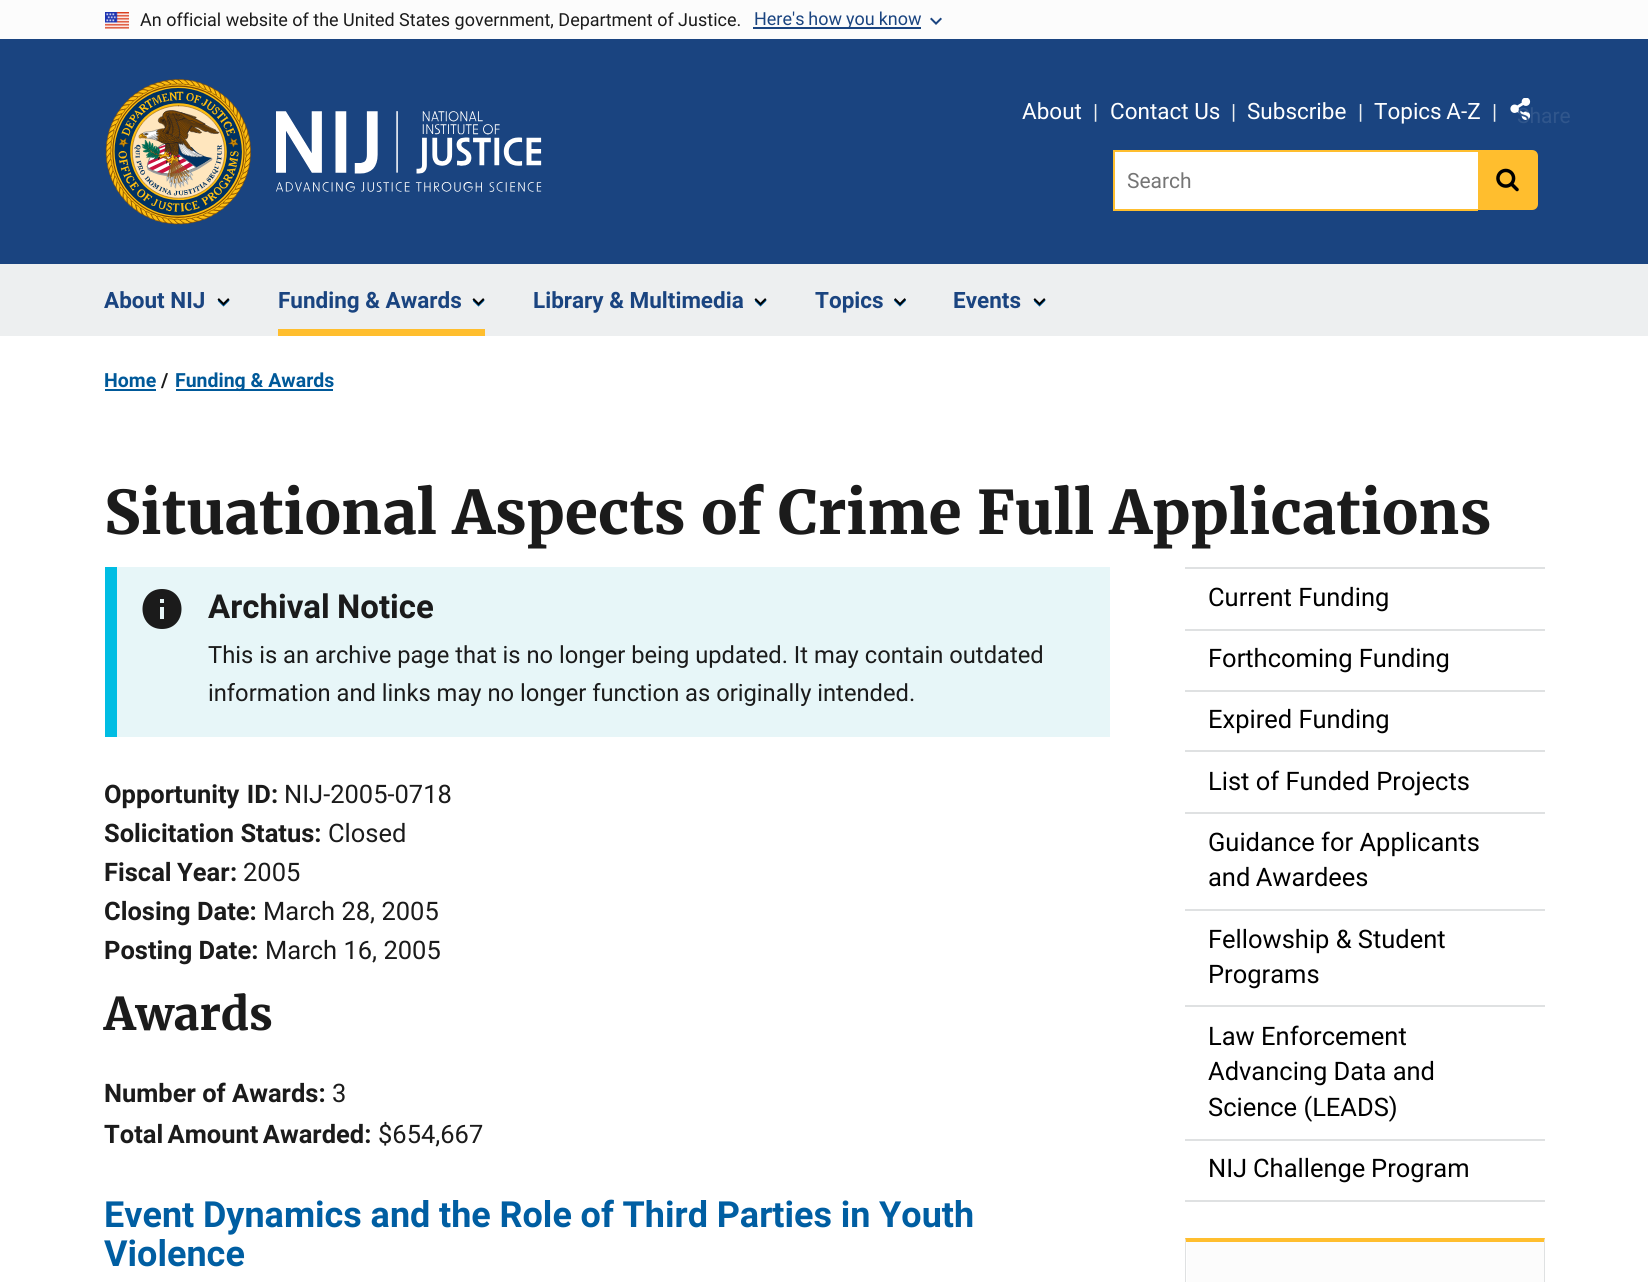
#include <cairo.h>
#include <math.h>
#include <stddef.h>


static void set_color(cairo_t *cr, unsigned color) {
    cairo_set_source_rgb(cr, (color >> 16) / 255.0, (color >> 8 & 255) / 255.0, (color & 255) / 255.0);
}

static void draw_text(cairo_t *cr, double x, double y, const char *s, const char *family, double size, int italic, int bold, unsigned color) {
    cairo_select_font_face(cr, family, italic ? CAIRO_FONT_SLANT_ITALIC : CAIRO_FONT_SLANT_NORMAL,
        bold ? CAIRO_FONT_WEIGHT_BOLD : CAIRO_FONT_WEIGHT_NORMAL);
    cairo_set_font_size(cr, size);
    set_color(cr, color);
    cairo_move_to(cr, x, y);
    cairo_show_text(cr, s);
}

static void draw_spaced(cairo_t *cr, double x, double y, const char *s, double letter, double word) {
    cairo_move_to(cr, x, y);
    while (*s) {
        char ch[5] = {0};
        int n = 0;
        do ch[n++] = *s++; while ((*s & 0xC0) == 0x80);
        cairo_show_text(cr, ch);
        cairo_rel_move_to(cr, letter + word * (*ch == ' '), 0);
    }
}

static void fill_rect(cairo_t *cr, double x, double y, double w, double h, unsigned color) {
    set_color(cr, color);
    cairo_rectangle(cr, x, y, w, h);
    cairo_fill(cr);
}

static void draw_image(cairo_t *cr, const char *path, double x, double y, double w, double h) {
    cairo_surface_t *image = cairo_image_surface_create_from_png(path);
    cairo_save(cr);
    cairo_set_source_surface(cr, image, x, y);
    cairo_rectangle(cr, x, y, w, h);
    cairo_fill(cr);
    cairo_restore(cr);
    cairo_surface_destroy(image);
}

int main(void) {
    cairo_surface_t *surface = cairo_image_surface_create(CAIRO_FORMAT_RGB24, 1648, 1282);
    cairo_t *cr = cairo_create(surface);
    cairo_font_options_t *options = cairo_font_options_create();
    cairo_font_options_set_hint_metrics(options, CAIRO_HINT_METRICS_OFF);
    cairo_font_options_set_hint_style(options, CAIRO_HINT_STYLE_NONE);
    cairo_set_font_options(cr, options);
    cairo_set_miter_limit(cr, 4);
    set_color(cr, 0xFFFFFF);
    cairo_paint(cr);
    fill_rect(cr, 0, 0, 1648, 39, 0xFCFCFC);
    draw_image(cr, "assets/img1.png", 105, 12, 24, 17);
    draw_text(cr, 140, 26, "An official website of the United States government, Department of Justice.", "Roboto", 18, 0, 0, 0x1B1B1B);
    fill_rect(cr, 753, 27, 168, 2, 0x1A4480);
    draw_spaced(cr, 754, 25, "Here's how you know", 0, -0.5);
    draw_image(cr, "assets/img2.png", 930, 17, 12, 8);
    fill_rect(cr, 0, 39, 1648, 225, 0x1A4480);
    draw_image(cr, "assets/img3.png", 105, 79, 147, 146);
    draw_image(cr, "assets/img4.png", 276, 111, 266, 81);
    fill_rect(cr, 0, 264, 1648, 72, 0xEDEFF0);
    draw_text(cr, 1022, 119, "About", "Roboto", 22.5, 0, 0, 0xFFFFFF);
    draw_text(cr, 1093, 119, "|", "Roboto", 21, 0, 0, 0xEDEFF0);
    draw_text(cr, 1110, 119, "Contact Us", "Roboto", 22.5, 0, 0, 0xFFFFFF);
    draw_text(cr, 1231, 119, "|", "Roboto", 21, 0, 0, 0xEDEFF0);
    draw_text(cr, 1247, 119, "Subscribe", "Roboto", 22.5, 0, 0, 0xFFFFFF);
    draw_text(cr, 1358, 119, "|", "Roboto", 21, 0, 0, 0xEDEFF0);
    cairo_set_font_size(cr, 22.5);
    set_color(cr, 0xFFFFFF);
    draw_spaced(cr, 1374, 119, "Topics A-Z", 0, -1);
    draw_text(cr, 1492, 119, "|", "Roboto", 21, 0, 0, 0xEDEFF0);
    draw_image(cr, "assets/img5.png", 1510, 98, 21, 22);
    draw_text(cr, 1517, 123, "Share", "Roboto", 21, 0, 0, 0x30568C);
    fill_rect(cr, 1115, 152, 363, 57, 0xFFFFFF);
    fill_rect(cr, 1113, 150, 365, 2, 0xFFBE2E);
    fill_rect(cr, 1113, 209, 365, 2, 0xFFBE2E);
    fill_rect(cr, 1113, 150, 2, 60, 0xFFBE2E);
    draw_text(cr, 1127, 188, "Search", "Roboto", 21, 0, 0, 0x757575);
    set_color(cr, 0xFFBE2E);
    cairo_new_path(cr);
    cairo_move_to(cr, 1478, 150);
    cairo_line_to(cr, 1532, 150);
    cairo_curve_to(cr, 1535.5, 150, 1538, 152.5, 1538, 156);
    cairo_line_to(cr, 1538, 204);
    cairo_curve_to(cr, 1538, 207.5, 1535.5, 210, 1532, 210);
    cairo_line_to(cr, 1478, 210);
    cairo_close_path(cr);
    cairo_fill(cr);
    draw_image(cr, "assets/img6.png", 1496, 168, 23, 24);
    draw_image(cr, "assets/img7.png", 218, 300, 12, 7);
    draw_text(cr, 104, 308, "About NIJ", "Roboto", 22.5, 0, 1, 0x1A4480);
    draw_image(cr, "assets/img8.png", 217, 298, 13, 8);
    draw_image(cr, "assets/img7.png", 473, 300, 12, 7);
    draw_text(cr, 278, 308, "Funding & Awards", "Roboto", 22.5, 0, 1, 0x1A4480);
    draw_image(cr, "assets/img8.png", 472, 298, 13, 8);
    fill_rect(cr, 278, 329, 207, 7, 0xFFBE2E);
    draw_image(cr, "assets/img7.png", 755, 300, 12, 7);
    draw_text(cr, 533, 308, "Library & Multimedia", "Roboto", 22.5, 0, 1, 0x1A4480);
    draw_image(cr, "assets/img8.png", 754, 298, 13, 8);
    draw_image(cr, "assets/img9.png", 894, 299, 12, 8);
    draw_text(cr, 815, 308, "Topics", "Roboto", 22.5, 0, 1, 0x1A4480);
    draw_image(cr, "assets/img10.png", 894, 298, 12, 8);
    draw_image(cr, "assets/img7.png", 1034, 300, 12, 7);
    draw_text(cr, 953, 308, "Events", "Roboto", 22.5, 0, 1, 0x1A4480);
    draw_image(cr, "assets/img8.png", 1033, 298, 13, 8);
    draw_text(cr, 104, 387, "Home", "Roboto", 19.5, 0, 1, 0x005999);
    fill_rect(cr, 105, 389, 51, 2, 0x005999);
    draw_text(cr, 161, 387, "/", "Roboto", 19.5, 0, 1, 0x1B1B1B);
    fill_rect(cr, 176, 389, 157, 2, 0x005999);
    draw_text(cr, 175, 387, "Funding & Awards", "Roboto", 19.5, 0, 1, 0x005999);
    draw_text(cr, 104, 534, "Situational Aspects of Crime Full Applications", "Merriweather", 60, 0, 1, 0x1B1B1B);
    fill_rect(cr, 117, 567, 993, 170, 0xE7F6F8);
    fill_rect(cr, 105, 567, 12, 170, 0x00BDE3);
    set_color(cr, 0x1B1B1B);
    cairo_new_path(cr);
    cairo_move_to(cr, 162, 589);
    cairo_curve_to(cr, 136, 589, 136, 629, 162, 629);
    cairo_curve_to(cr, 188, 629, 188, 589, 162, 589);
    cairo_close_path(cr);
    cairo_move_to(cr, 164, 619);
    cairo_line_to(cr, 160, 619);
    cairo_line_to(cr, 160, 607);
    cairo_line_to(cr, 164, 607);
    cairo_close_path(cr);
    cairo_move_to(cr, 164, 603);
    cairo_line_to(cr, 160, 603);
    cairo_line_to(cr, 160, 599);
    cairo_line_to(cr, 164, 599);
    cairo_close_path(cr);
    cairo_fill(cr);
    cairo_select_font_face(cr, "Roboto", CAIRO_FONT_SLANT_NORMAL, CAIRO_FONT_WEIGHT_BOLD);
    cairo_set_font_size(cr, 33);
    draw_spaced(cr, 208, 618, "Archival Notice", 0, -1);
    draw_text(cr, 208, 663, "This is an archive page that is no longer being updated. It may contain outdated", "Roboto", 23.75, 0, 0, 0x1B1B1B);
    draw_text(cr, 208, 701, "information and links may no longer function as originally intended.", "Roboto", 23.75, 0, 0, 0x1B1B1B);
    cairo_select_font_face(cr, "Roboto", CAIRO_FONT_SLANT_NORMAL, CAIRO_FONT_WEIGHT_BOLD);
    cairo_set_font_size(cr, 25.5);
    draw_spaced(cr, 104, 803, "Opportunity ID", 0, 1);
    draw_text(cr, 271, 803, ":", "Roboto", 25.5, 0, 1, 0x1B1B1B);
    draw_text(cr, 284, 803, "NIJ-2005-0718", "Roboto", 25.5, 0, 0, 0x1B1B1B);
    draw_text(cr, 104, 842, "Solicitation Status:", "Roboto", 25.5, 0, 1, 0x1B1B1B);
    draw_text(cr, 328, 842, "Closed", "Roboto", 25.5, 0, 0, 0x1B1B1B);
    cairo_select_font_face(cr, "Roboto", CAIRO_FONT_SLANT_NORMAL, CAIRO_FONT_WEIGHT_BOLD);
    draw_spaced(cr, 104, 881, "Fiscal Year", 0, -1);
    draw_text(cr, 230, 881, ":", "Roboto", 25.5, 0, 1, 0x1B1B1B);
    draw_text(cr, 243, 881, "2005", "Roboto", 25.5, 0, 0, 0x1B1B1B);
    draw_text(cr, 104, 920, "Closing Date:", "Roboto", 25.5, 0, 1, 0x1B1B1B);
    draw_text(cr, 263, 920, "March 28, 2005", "Roboto", 25.5, 0, 0, 0x1B1B1B);
    draw_text(cr, 104, 959, "Posting Date:", "Roboto", 25.5, 0, 1, 0x1B1B1B);
    draw_text(cr, 265, 959, "March 16, 2005", "Roboto", 25.5, 0, 0, 0x1B1B1B);
    draw_text(cr, 104, 1030, "Awards", "Merriweather", 45, 0, 1, 0x1B1B1B);
    draw_text(cr, 104, 1102, "Number of Awards:", "Roboto", 25.5, 0, 1, 0x1B1B1B);
    draw_text(cr, 332, 1102, "3", "Roboto", 25.5, 0, 0, 0x1B1B1B);
    cairo_select_font_face(cr, "Roboto", CAIRO_FONT_SLANT_NORMAL, CAIRO_FONT_WEIGHT_BOLD);
    draw_spaced(cr, 104, 1143, "Total Amount Awarded:", 0, -2);
    draw_text(cr, 378, 1143, "$654,667", "Roboto", 25.5, 0, 0, 0x1B1B1B);
    cairo_select_font_face(cr, "Roboto", CAIRO_FONT_SLANT_NORMAL, CAIRO_FONT_WEIGHT_BOLD);
    cairo_set_font_size(cr, 36);
    set_color(cr, 0x005EA2);
    draw_spaced(cr, 104, 1227, "Event Dynamics and the Role of Third Parties in Youth", 0, -0.25);
    draw_text(cr, 104, 1266, "Violence", "Roboto", 36, 0, 1, 0x005EA2);
    fill_rect(cr, 1185, 1200, 360, 2, 0xDFE1E2);
    fill_rect(cr, 1185, 567, 360, 2, 0xDFE1E2);
    draw_text(cr, 1208, 606, "Current Funding", "Roboto", 25.5, 0, 0, 0x000000);
    fill_rect(cr, 1185, 629, 360, 2, 0xDFE1E2);
    draw_text(cr, 1208, 667, "Forthcoming Funding", "Roboto", 25.5, 0, 0, 0x000000);
    fill_rect(cr, 1185, 690, 360, 2, 0xDFE1E2);
    draw_text(cr, 1208, 728, "Expired Funding", "Roboto", 25.5, 0, 0, 0x000000);
    fill_rect(cr, 1185, 750, 360, 2, 0xDFE1E2);
    draw_text(cr, 1208, 790, "List of Funded Projects", "Roboto", 25.5, 0, 0, 0x000000);
    fill_rect(cr, 1185, 812, 360, 2, 0xDFE1E2);
    draw_text(cr, 1208, 851, "Guidance for Applicants", "Roboto", 25.5, 0, 0, 0x000000);
    draw_spaced(cr, 1208, 886, "and Awardees", 0, -1);
    fill_rect(cr, 1185, 909, 360, 2, 0xDFE1E2);
    draw_text(cr, 1208, 948, "Fellowship & Student", "Roboto", 25.5, 0, 0, 0x000000);
    draw_text(cr, 1208, 983, "Programs", "Roboto", 25.5, 0, 0, 0x000000);
    fill_rect(cr, 1185, 1005, 360, 2, 0xDFE1E2);
    draw_text(cr, 1208, 1045, "Law Enforcement", "Roboto", 25.5, 0, 0, 0x000000);
    draw_text(cr, 1208, 1080, "Advancing Data and", "Roboto", 25.5, 0, 0, 0x000000);
    draw_text(cr, 1208, 1116, "Science (LEADS)", "Roboto", 25.5, 0, 0, 0x000000);
    fill_rect(cr, 1185, 1139, 360, 2, 0xDFE1E2);
    set_color(cr, 0x000000);
    draw_spaced(cr, 1208, 1177, "NIJ Challenge Program", 0, -0.5);
    fill_rect(cr, 1187, 1242, 357, 40, 0xFCFCFC);
    set_color(cr, 0xFFBE2E);
    cairo_new_path(cr);
    cairo_move_to(cr, 1185, 1238);
    cairo_line_to(cr, 1545, 1238);
    cairo_line_to(cr, 1544, 1242);
    cairo_line_to(cr, 1186, 1242);
    cairo_close_path(cr);
    cairo_fill(cr);
    set_color(cr, 0xDFE1E2);
    cairo_new_path(cr);
    cairo_move_to(cr, 1545, 1238);
    cairo_line_to(cr, 1545, 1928);
    cairo_line_to(cr, 1544, 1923);
    cairo_line_to(cr, 1544, 1242);
    cairo_close_path(cr);
    cairo_fill(cr);
    cairo_new_path(cr);
    cairo_move_to(cr, 1185, 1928);
    cairo_line_to(cr, 1185, 1238);
    cairo_line_to(cr, 1186, 1242);
    cairo_line_to(cr, 1186, 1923);
    cairo_close_path(cr);
    cairo_fill(cr);
    cairo_surface_write_to_png(surface, "output.png");
    cairo_font_options_destroy(options);
    cairo_destroy(cr);
    cairo_surface_destroy(surface);
    return 0;
}
